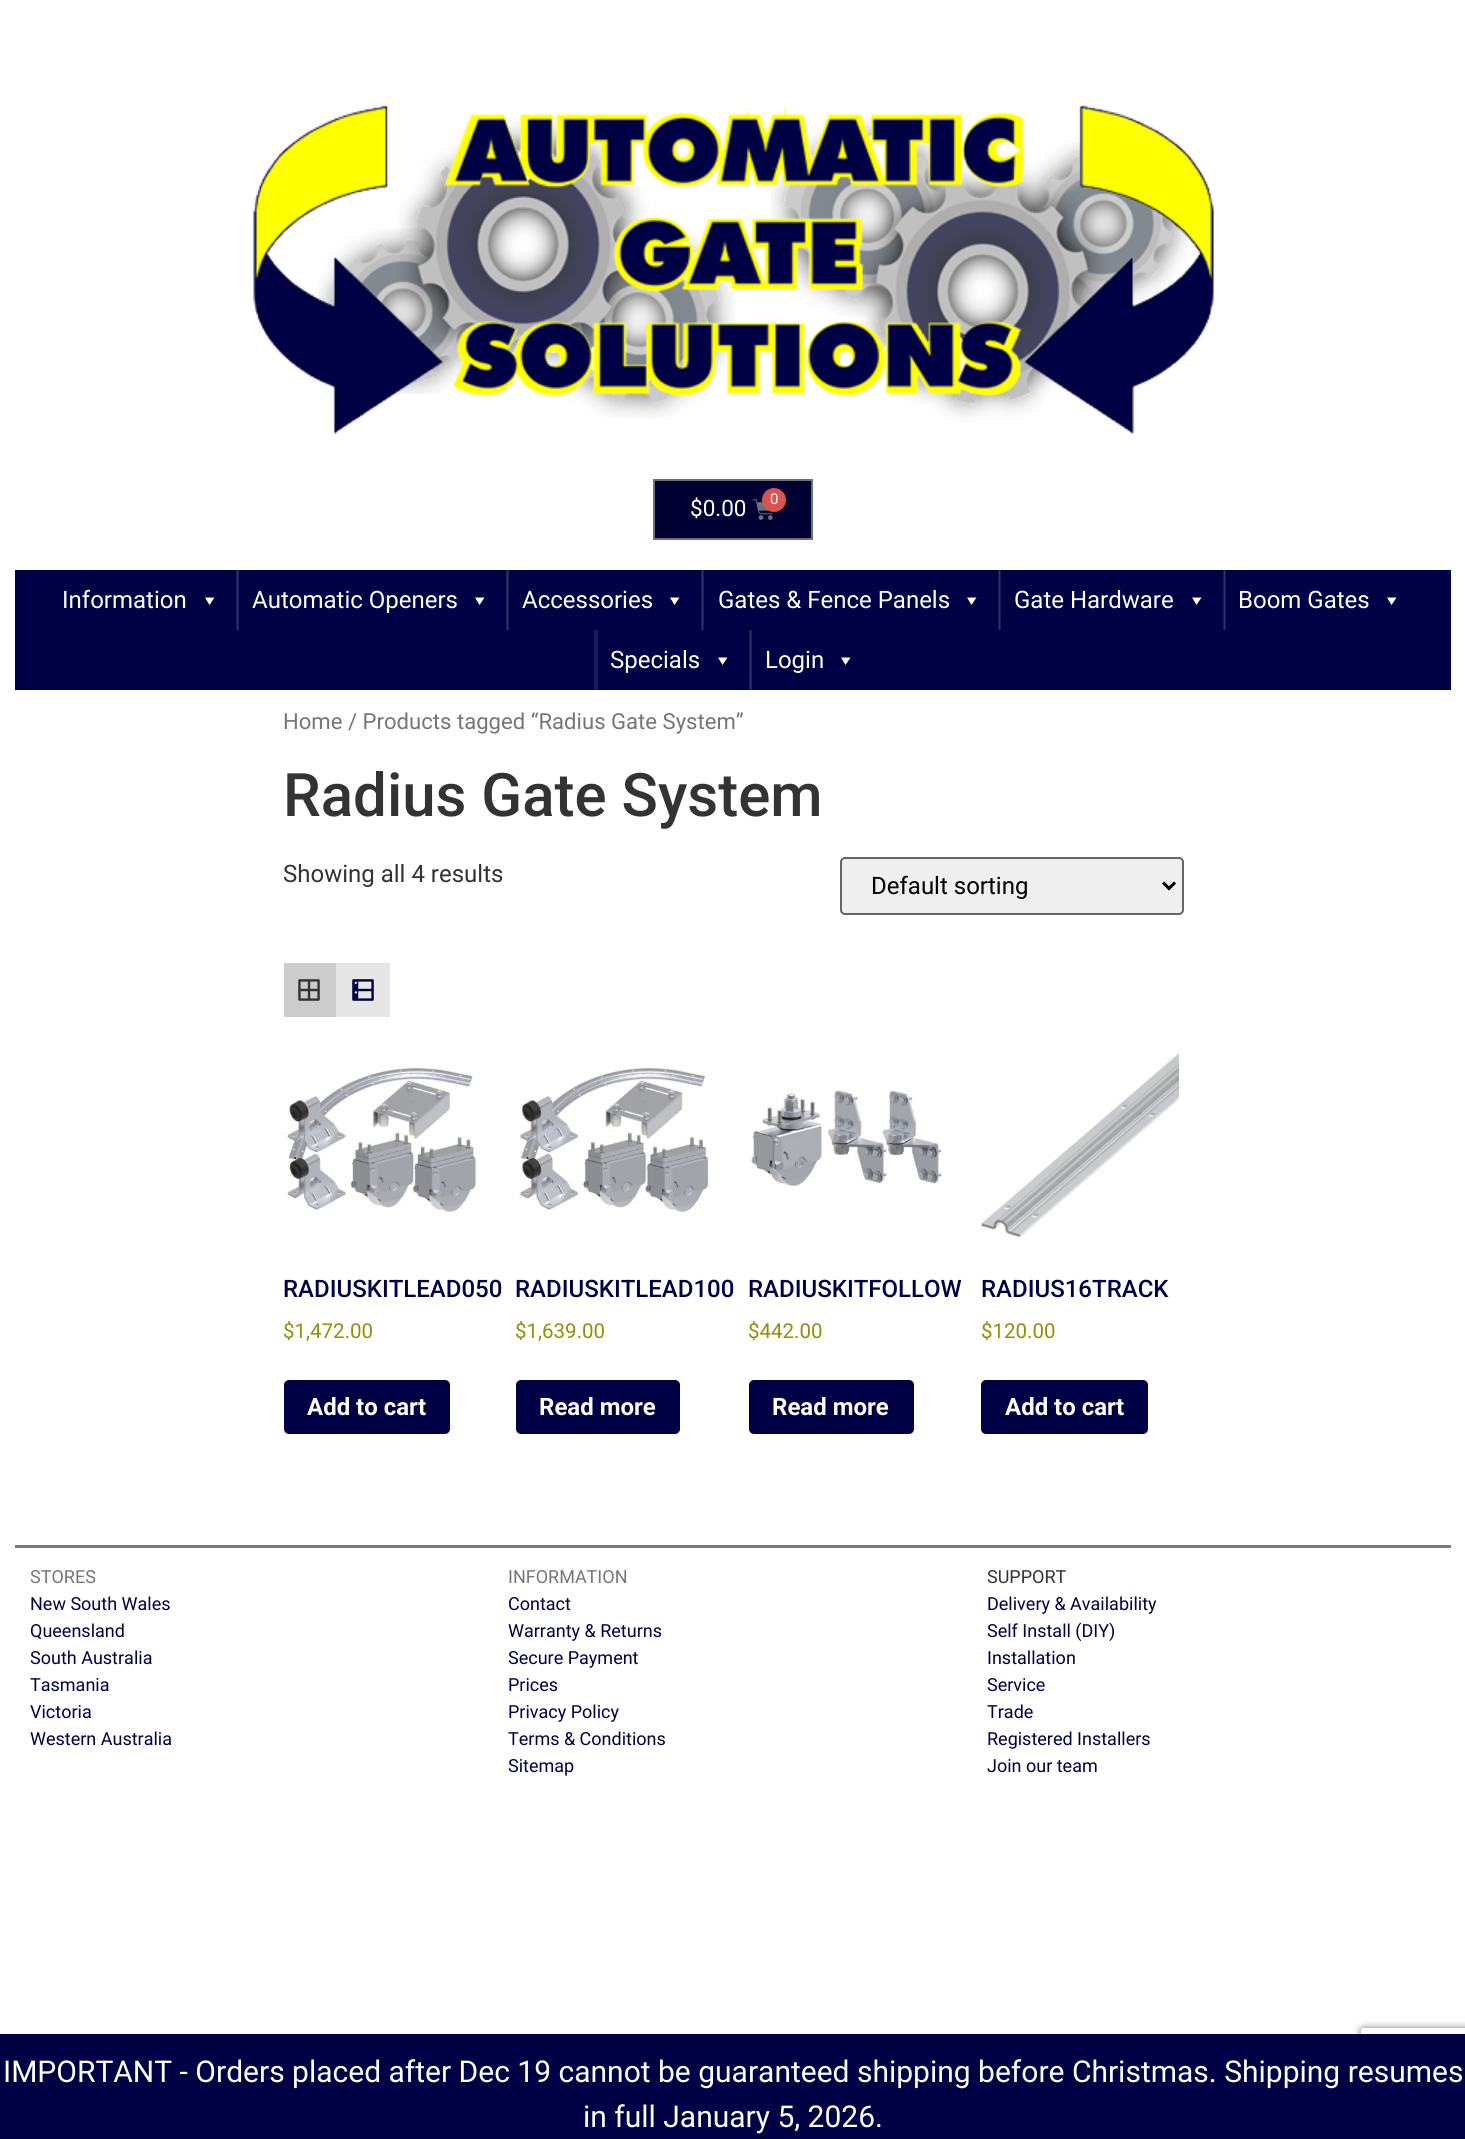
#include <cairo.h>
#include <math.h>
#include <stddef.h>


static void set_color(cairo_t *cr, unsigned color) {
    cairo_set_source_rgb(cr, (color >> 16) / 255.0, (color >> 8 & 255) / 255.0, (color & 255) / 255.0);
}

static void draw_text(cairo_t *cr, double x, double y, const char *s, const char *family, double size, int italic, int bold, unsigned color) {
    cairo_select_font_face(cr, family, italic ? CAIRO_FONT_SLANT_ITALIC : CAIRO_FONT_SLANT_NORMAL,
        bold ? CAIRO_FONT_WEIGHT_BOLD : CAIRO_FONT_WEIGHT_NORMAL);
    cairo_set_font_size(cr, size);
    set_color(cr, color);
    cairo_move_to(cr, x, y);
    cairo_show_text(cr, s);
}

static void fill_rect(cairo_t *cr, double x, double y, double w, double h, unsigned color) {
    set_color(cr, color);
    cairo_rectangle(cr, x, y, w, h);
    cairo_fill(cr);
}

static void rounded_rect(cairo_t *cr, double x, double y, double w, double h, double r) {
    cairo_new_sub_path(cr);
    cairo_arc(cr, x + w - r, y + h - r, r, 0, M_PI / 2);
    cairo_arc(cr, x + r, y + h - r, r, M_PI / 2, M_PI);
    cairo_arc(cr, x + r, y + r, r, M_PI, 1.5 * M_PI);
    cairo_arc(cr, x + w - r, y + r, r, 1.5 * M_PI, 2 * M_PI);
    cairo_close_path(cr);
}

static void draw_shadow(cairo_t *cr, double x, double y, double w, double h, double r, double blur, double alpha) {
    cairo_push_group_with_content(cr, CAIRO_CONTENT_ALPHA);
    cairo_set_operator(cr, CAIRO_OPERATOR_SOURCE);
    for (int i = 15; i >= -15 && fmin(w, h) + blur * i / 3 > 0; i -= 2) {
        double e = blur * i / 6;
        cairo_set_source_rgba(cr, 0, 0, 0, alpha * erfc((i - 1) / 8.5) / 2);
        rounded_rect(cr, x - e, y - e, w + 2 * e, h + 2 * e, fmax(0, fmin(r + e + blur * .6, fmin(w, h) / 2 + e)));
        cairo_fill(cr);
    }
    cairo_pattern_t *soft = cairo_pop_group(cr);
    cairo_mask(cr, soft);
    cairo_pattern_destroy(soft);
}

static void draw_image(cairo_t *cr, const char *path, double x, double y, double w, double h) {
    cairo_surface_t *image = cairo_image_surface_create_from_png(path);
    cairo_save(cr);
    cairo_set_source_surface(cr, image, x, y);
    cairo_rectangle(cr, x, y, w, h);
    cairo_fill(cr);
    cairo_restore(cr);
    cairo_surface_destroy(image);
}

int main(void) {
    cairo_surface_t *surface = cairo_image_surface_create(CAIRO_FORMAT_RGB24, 1465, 2139);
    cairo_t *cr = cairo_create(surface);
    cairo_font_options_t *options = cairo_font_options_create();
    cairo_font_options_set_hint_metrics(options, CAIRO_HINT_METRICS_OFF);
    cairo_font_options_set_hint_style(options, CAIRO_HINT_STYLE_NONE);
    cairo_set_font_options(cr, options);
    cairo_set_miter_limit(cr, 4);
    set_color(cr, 0xFFFFFF);
    cairo_paint(cr);
    draw_image(cr, "assets/img1.png", 253, 105, 961, 329);
    set_color(cr, 0x000033);
    cairo_rectangle(cr, 654, 480, 158, 59);
    cairo_fill_preserve(cr);
    set_color(cr, 0x69727D);
    cairo_stroke(cr);
    draw_text(cr, 690, 516, "$0.00", "Roboto", 22.5, 0, 0, 0xFFFFFF);
    draw_image(cr, "assets/img2.png", 753, 499, 20, 21);
    set_color(cr, 0xD9534F);
    cairo_arc(cr, 774, 500, 12, 0, 2 * M_PI);
    cairo_fill(cr);
    draw_text(cr, 770, 504, "0", "Roboto", 15, 0, 0, 0xFFFFFF);
    fill_rect(cr, 15, 570, 1436, 120, 0x000044);
    fill_rect(cr, 749, 630, 1, 60, 0x1A1A57);
    fill_rect(cr, 1223, 570, 1, 60, 0x1A1A57);
    fill_rect(cr, 998, 570, 1, 60, 0x1A1A57);
    fill_rect(cr, 701, 570, 1, 60, 0x1A1A57);
    fill_rect(cr, 506, 570, 1, 60, 0x1A1A57);
    fill_rect(cr, 236, 570, 1, 60, 0x1A1A57);
    draw_text(cr, 62, 608, "Information", "Roboto", 24, 0, 0, 0xFFFFFF);
    cairo_new_path(cr);
    cairo_move_to(cr, 214.5, 597.5);
    cairo_line_to(cr, 209.5, 605);
    cairo_line_to(cr, 205, 597.5);
    cairo_close_path(cr);
    cairo_fill(cr);
    fill_rect(cr, 238, 570, 1, 60, 0x1A1A57);
    fill_rect(cr, 237, 570, 1, 60, 0x313168);
    draw_text(cr, 252, 608, "Automatic Openers", "Roboto", 24, 0, 0, 0xFFFFFF);
    cairo_new_path(cr);
    cairo_move_to(cr, 484.5, 597.5);
    cairo_line_to(cr, 479.5, 605);
    cairo_line_to(cr, 475, 597.5);
    cairo_close_path(cr);
    cairo_fill(cr);
    fill_rect(cr, 508, 570, 1, 60, 0x1A1A57);
    fill_rect(cr, 507, 570, 1, 60, 0x313168);
    draw_text(cr, 522, 608, "Accessories", "Roboto", 24, 0, 0, 0xFFFFFF);
    cairo_new_path(cr);
    cairo_move_to(cr, 679.5, 597.5);
    cairo_line_to(cr, 674.5, 605);
    cairo_line_to(cr, 670, 597.5);
    cairo_close_path(cr);
    cairo_fill(cr);
    fill_rect(cr, 703, 570, 1, 60, 0x1A1A57);
    fill_rect(cr, 702, 570, 1, 60, 0x313168);
    draw_text(cr, 718, 608, "Gates & Fence Panels", "Roboto", 24, 0, 0, 0xFFFFFF);
    cairo_new_path(cr);
    cairo_move_to(cr, 976.5, 597.5);
    cairo_line_to(cr, 971.5, 605);
    cairo_line_to(cr, 967, 597.5);
    cairo_close_path(cr);
    cairo_fill(cr);
    fill_rect(cr, 1000, 570, 1, 60, 0x1A1A57);
    fill_rect(cr, 999, 570, 1, 60, 0x313168);
    draw_text(cr, 1014, 608, "Gate Hardware", "Roboto", 24, 0, 0, 0xFFFFFF);
    cairo_new_path(cr);
    cairo_move_to(cr, 1201.5, 597.5);
    cairo_line_to(cr, 1196.5, 605);
    cairo_line_to(cr, 1192, 597.5);
    cairo_close_path(cr);
    cairo_fill(cr);
    fill_rect(cr, 1225, 570, 1, 60, 0x1A1A57);
    fill_rect(cr, 1224, 570, 1, 60, 0x313168);
    draw_text(cr, 1238, 608, "Boom Gates", "Roboto", 24, 0, 0, 0xFFFFFF);
    cairo_new_path(cr);
    cairo_move_to(cr, 1396.5, 597.5);
    cairo_line_to(cr, 1391.5, 605);
    cairo_line_to(cr, 1387, 597.5);
    cairo_close_path(cr);
    cairo_fill(cr);
    fill_rect(cr, 594, 630, 4, 60, 0x1A1A57);
    draw_text(cr, 610, 668, "Specials", "Roboto", 24, 0, 0, 0xFFFFFF);
    cairo_new_path(cr);
    cairo_move_to(cr, 727.5, 657.5);
    cairo_line_to(cr, 722.5, 665);
    cairo_line_to(cr, 718, 657.5);
    cairo_close_path(cr);
    cairo_fill(cr);
    fill_rect(cr, 751, 630, 1, 60, 0x1A1A57);
    fill_rect(cr, 750, 630, 1, 60, 0x313168);
    draw_text(cr, 765, 668, "Login", "Roboto", 24, 0, 0, 0xFFFFFF);
    cairo_new_path(cr);
    cairo_move_to(cr, 850.5, 657.5);
    cairo_line_to(cr, 845.5, 665);
    cairo_line_to(cr, 841, 657.5);
    cairo_close_path(cr);
    cairo_fill(cr);
    draw_text(cr, 283, 729, "Home / Products tagged “Radius Gate System”", "Roboto", 22.1, 0, 0, 0x767676);
    draw_text(cr, 283, 816, "Radius Gate System", "Roboto Medium", 60, 0, 0, 0x333333);
    draw_text(cr, 283, 882, "Showing all 4 results", "Roboto", 24, 0, 0, 0x333333);
    set_color(cr, 0xEFEFEF);
    rounded_rect(cr, 841, 858, 342, 56, 4);
    cairo_fill_preserve(cr);
    set_color(cr, 0x666666);
    cairo_stroke(cr);
    cairo_new_path(cr);
    cairo_move_to(cr, 1163, 882.5);
    cairo_line_to(cr, 1169, 888.5);
    cairo_line_to(cr, 1175, 882.5);
    set_color(cr, 0x000000);
    cairo_set_line_width(cr, 3);
    cairo_stroke(cr);
    draw_text(cr, 871, 894, "Default sorting", "Roboto", 24, 0, 0, 0x000000);
    fill_rect(cr, 284, 963, 52, 54, 0xCCCCCC);
    draw_image(cr, "assets/img3.png", 298, 979, 22, 22);
    fill_rect(cr, 336, 963, 54, 54, 0xE6E6E6);
    draw_image(cr, "assets/img4.png", 352, 979, 22, 22);
    draw_image(cr, "assets/img5.png", 284, 1067, 194, 146);
    draw_text(cr, 283, 1297, "RADIUSKITLEAD050", "Roboto Medium", 24, 0, 0, 0x000044);
    draw_text(cr, 283, 1338, "$1,472.00", "Roboto", 20.5, 0, 0, 0x958E09);
    set_color(cr, 0x000044);
    rounded_rect(cr, 284, 1380, 166, 54, 5);
    cairo_fill(cr);
    draw_text(cr, 307, 1415, "Add to cart", "Roboto", 24, 0, 1, 0xFFFFFF);
    draw_image(cr, "assets/img6.png", 518, 1067, 192, 146);
    draw_text(cr, 515, 1297, "RADIUSKITLEAD100", "Roboto Medium", 24, 0, 0, 0x000044);
    draw_text(cr, 515, 1338, "$1,639.00", "Roboto", 20.5, 0, 0, 0x958E09);
    set_color(cr, 0x000044);
    rounded_rect(cr, 516, 1380, 164, 54, 5);
    cairo_fill(cr);
    draw_text(cr, 539, 1415, "Read more", "Roboto", 24, 0, 1, 0xFFFFFF);
    draw_image(cr, "assets/img7.png", 749, 1089, 195, 98);
    draw_text(cr, 748, 1297, "RADIUSKITFOLLOW", "Roboto Medium", 24, 0, 0, 0x000044);
    draw_text(cr, 748, 1338, "$442.00", "Roboto", 20.5, 0, 0, 0x958E09);
    set_color(cr, 0x000044);
    rounded_rect(cr, 749, 1380, 165, 54, 5);
    cairo_fill(cr);
    draw_text(cr, 772, 1415, "Read more", "Roboto", 24, 0, 1, 0xFFFFFF);
    draw_image(cr, "assets/img8.png", 981, 1053, 198, 185);
    draw_text(cr, 981, 1297, "RADIUS16TRACK", "Roboto Medium", 24, 0, 0, 0x000044);
    draw_text(cr, 981, 1338, "$120.00", "Roboto", 20.5, 0, 0, 0x958E09);
    set_color(cr, 0x000044);
    rounded_rect(cr, 981, 1380, 167, 54, 5);
    cairo_fill(cr);
    draw_text(cr, 1005, 1415, "Add to cart", "Roboto", 24, 0, 1, 0xFFFFFF);
    fill_rect(cr, 15, 1545, 1436, 3, 0x7A7A7A);
    draw_text(cr, 30, 1583, "STORES", "Roboto", 18, 0, 0, 0x767676);
    draw_text(cr, 30, 1610, "New South Wales", "Roboto", 18, 0, 0, 0x000044);
    draw_text(cr, 30, 1637, "Queensland", "Roboto", 18, 0, 0, 0x000044);
    draw_text(cr, 30, 1664, "South Australia", "Roboto", 18, 0, 0, 0x000044);
    draw_text(cr, 30, 1691, "Tasmania", "Roboto", 18, 0, 0, 0x000044);
    draw_text(cr, 30, 1718, "Victoria", "Roboto", 18, 0, 0, 0x000044);
    draw_text(cr, 30, 1745, "Western Australia", "Roboto", 18, 0, 0, 0x000044);
    draw_text(cr, 508, 1583, "INFORMATION", "Roboto", 18, 0, 0, 0x767676);
    draw_text(cr, 508, 1610, "Contact", "Roboto", 18, 0, 0, 0x000044);
    draw_text(cr, 508, 1637, "Warranty & Returns", "Roboto", 18, 0, 0, 0x000044);
    draw_text(cr, 508, 1664, "Secure Payment", "Roboto", 18, 0, 0, 0x000044);
    draw_text(cr, 508, 1691, "Prices", "Roboto", 18, 0, 0, 0x000044);
    draw_text(cr, 508, 1718, "Privacy Policy", "Roboto", 18, 0, 0, 0x000044);
    draw_text(cr, 508, 1745, "Terms & Conditions", "Roboto", 18, 0, 0, 0x000044);
    draw_text(cr, 508, 1772, "Sitemap", "Roboto", 18, 0, 0, 0x000044);
    draw_text(cr, 987, 1583, "SUPPORT", "Roboto", 18, 0, 0, 0x333333);
    draw_text(cr, 987, 1610, "Delivery & Availability", "Roboto", 18, 0, 0, 0x000044);
    draw_text(cr, 987, 1637, "Self Install (DIY)", "Roboto", 18, 0, 0, 0x000044);
    draw_text(cr, 987, 1664, "Installation", "Roboto", 18, 0, 0, 0x000044);
    draw_text(cr, 987, 1691, "Service", "Roboto", 18, 0, 0, 0x000044);
    draw_text(cr, 987, 1718, "Trade", "Roboto", 18, 0, 0, 0x000044);
    draw_text(cr, 987, 1745, "Registered Installers", "Roboto", 18, 0, 0, 0x000044);
    draw_text(cr, 987, 1772, "Join our team", "Roboto", 18, 0, 0, 0x000044);
    cairo_save(cr);
    cairo_set_fill_rule(cr, CAIRO_FILL_RULE_EVEN_ODD);
    cairo_new_path(cr);
    cairo_move_to(cr, 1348, 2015);
    cairo_line_to(cr, 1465, 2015);
    cairo_line_to(cr, 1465, 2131);
    cairo_line_to(cr, 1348, 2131);
    cairo_close_path(cr);
    cairo_move_to(cr, 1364, 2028);
    cairo_line_to(cr, 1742, 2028);
    cairo_curve_to(cr, 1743.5, 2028, 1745, 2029.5, 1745, 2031);
    cairo_line_to(cr, 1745, 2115);
    cairo_curve_to(cr, 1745, 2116.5, 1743.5, 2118, 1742, 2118);
    cairo_line_to(cr, 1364, 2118);
    cairo_curve_to(cr, 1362.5, 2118, 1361, 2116.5, 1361, 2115);
    cairo_line_to(cr, 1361, 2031);
    cairo_curve_to(cr, 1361, 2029.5, 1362.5, 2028, 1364, 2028);
    cairo_close_path(cr);
    cairo_clip(cr);
    set_color(cr, 0x808080);
    draw_shadow(cr, 1361, 2028, 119, 90, 3, 4, 1);
    cairo_restore(cr);
    fill_rect(cr, 0, 2034, 1465, 105, 0x000044);
    draw_text(cr, 3, 2082, "IMPORTANT - Orders placed after Dec 19 cannot be guaranteed shipping before Christmas. Shipping resumes", "Roboto", 30, 0, 0, 0xFFFFFF);
    draw_text(cr, 583, 2127, "in full January 5, 2026.", "Roboto", 30, 0, 0, 0xFFFFFF);
    cairo_surface_write_to_png(surface, "output.png");
    cairo_font_options_destroy(options);
    cairo_destroy(cr);
    cairo_surface_destroy(surface);
    return 0;
}
